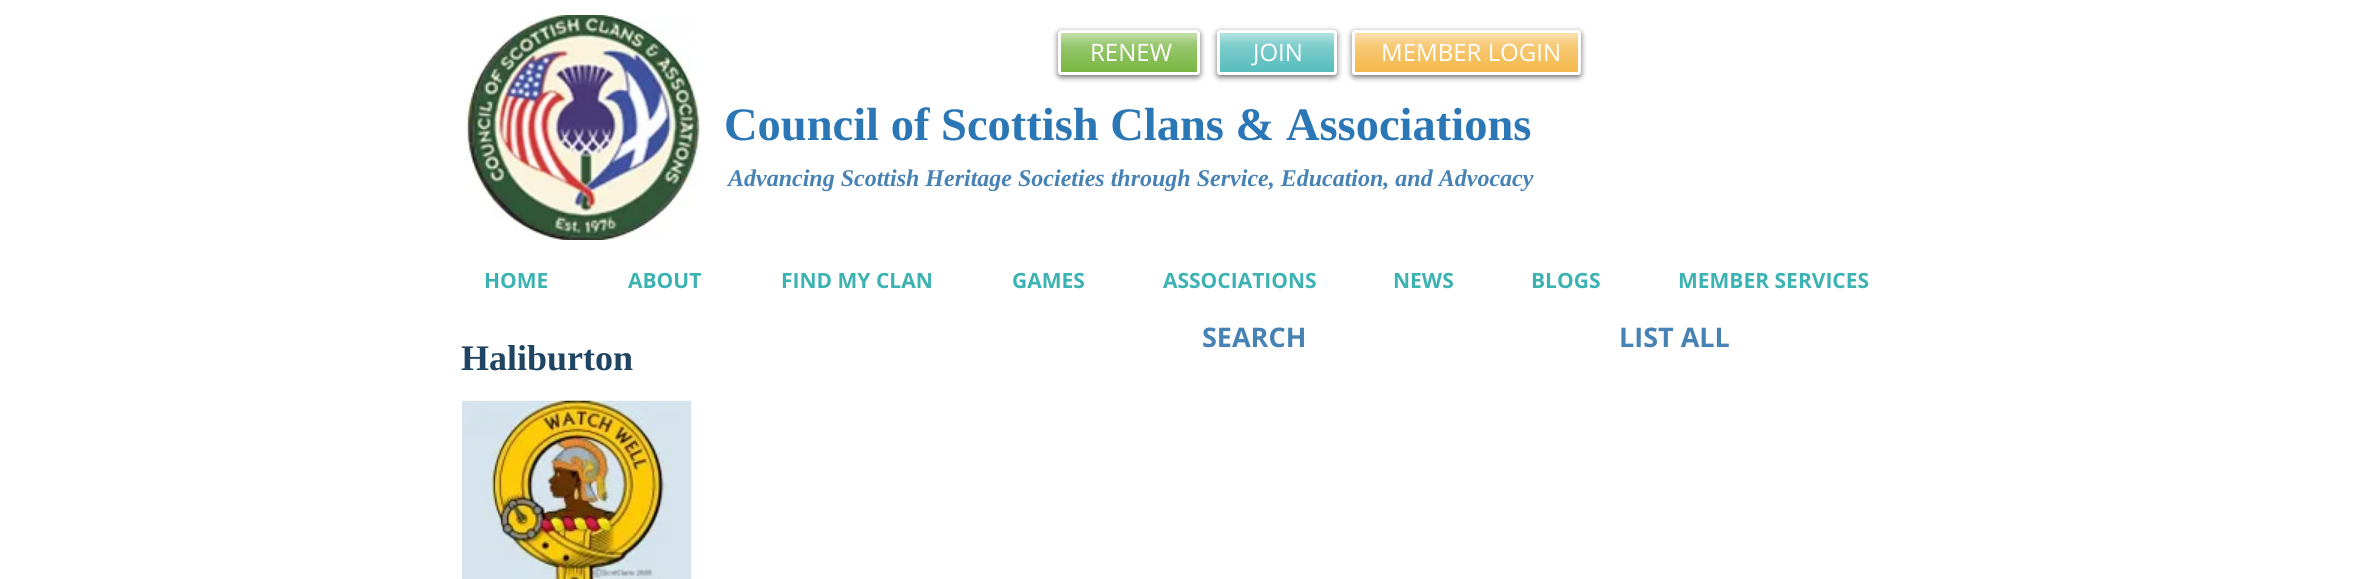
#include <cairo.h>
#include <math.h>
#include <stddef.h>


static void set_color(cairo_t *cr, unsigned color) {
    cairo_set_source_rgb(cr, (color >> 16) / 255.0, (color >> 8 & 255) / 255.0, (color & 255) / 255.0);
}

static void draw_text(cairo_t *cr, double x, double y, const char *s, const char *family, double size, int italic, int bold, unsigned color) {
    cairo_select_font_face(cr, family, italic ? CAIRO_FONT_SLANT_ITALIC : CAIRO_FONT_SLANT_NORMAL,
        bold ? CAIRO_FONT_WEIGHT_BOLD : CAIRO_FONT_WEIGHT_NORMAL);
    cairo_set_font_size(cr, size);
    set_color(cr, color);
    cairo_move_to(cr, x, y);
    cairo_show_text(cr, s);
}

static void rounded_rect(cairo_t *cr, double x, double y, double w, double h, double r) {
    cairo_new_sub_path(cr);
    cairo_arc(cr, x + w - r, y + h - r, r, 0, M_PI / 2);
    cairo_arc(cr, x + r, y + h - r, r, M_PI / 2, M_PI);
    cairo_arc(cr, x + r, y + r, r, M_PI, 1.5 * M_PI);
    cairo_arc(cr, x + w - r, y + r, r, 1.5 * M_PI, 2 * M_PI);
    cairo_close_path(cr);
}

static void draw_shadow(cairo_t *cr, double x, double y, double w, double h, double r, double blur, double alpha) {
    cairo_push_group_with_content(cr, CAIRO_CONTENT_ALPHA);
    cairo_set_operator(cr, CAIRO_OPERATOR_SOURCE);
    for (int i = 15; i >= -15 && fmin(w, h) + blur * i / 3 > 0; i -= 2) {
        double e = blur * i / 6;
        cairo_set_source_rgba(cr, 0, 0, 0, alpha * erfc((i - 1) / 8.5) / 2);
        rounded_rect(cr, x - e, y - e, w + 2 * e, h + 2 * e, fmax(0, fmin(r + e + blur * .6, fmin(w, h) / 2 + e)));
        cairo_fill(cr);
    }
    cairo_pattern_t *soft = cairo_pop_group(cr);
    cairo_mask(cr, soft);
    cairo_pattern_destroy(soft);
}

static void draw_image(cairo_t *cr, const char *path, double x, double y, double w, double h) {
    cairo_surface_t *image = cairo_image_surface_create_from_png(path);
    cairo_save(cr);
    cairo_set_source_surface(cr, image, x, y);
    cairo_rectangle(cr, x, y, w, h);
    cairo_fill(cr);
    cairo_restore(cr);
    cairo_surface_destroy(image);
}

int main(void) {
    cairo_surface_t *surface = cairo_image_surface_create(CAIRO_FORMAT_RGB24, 2377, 579);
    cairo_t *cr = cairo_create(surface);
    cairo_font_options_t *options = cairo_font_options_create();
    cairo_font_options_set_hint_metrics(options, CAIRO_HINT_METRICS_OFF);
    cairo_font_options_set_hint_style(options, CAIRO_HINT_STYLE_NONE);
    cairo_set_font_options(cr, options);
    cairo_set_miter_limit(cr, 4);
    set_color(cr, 0xFFFFFF);
    cairo_paint(cr);
    draw_image(cr, "assets/img1.png", 466, 15, 235, 225);
    set_color(cr, 0x000000);
    draw_shadow(cr, 1058, 32, 142, 45, 3, 3, 0.6);
    set_color(cr, 0x62AA23);
    rounded_rect(cr, 1058, 30, 142, 45, 3);
    cairo_fill(cr);
    draw_image(cr, "assets/img2.png", 1057, 33, 143, 42);
    rounded_rect(cr, 1059.5, 31.5, 139, 42, 1.5);
    set_color(cr, 0xFFFFFF);
    cairo_set_line_width(cr, 3);
    cairo_stroke(cr);
    draw_text(cr, 1090, 61, "RENEW", "Open Sans", 24, 0, 0, 0xFFFFFF);
    set_color(cr, 0x000000);
    draw_shadow(cr, 1217, 32, 120, 45, 3, 3, 0.6);
    set_color(cr, 0x3CB2B2);
    rounded_rect(cr, 1217, 30, 120, 45, 3);
    cairo_fill(cr);
    draw_image(cr, "assets/img3.png", 1216, 33, 121, 42);
    rounded_rect(cr, 1218.5, 31.5, 117, 42, 1.5);
    set_color(cr, 0xFFFFFF);
    cairo_stroke(cr);
    draw_text(cr, 1253, 61, "JOIN", "Open Sans", 24, 0, 0, 0xFFFFFF);
    set_color(cr, 0x000000);
    draw_shadow(cr, 1352, 32, 229, 45, 3, 3, 0.6);
    set_color(cr, 0xF2AD2E);
    rounded_rect(cr, 1352, 30, 229, 45, 3);
    cairo_fill(cr);
    draw_image(cr, "assets/img4.png", 1351, 33, 230, 42);
    rounded_rect(cr, 1353.5, 31.5, 226, 42, 1.5);
    set_color(cr, 0xFFFFFF);
    cairo_stroke(cr);
    draw_text(cr, 1381, 61, "MEMBER LOGIN", "Open Sans", 24, 0, 0, 0xFFFFFF);
    draw_text(cr, 724, 140, "Council of Scottish Clans & Associations", "Liberation Serif", 46.5, 0, 1, 0x2B77B5);
    draw_text(cr, 728, 186, "Advancing Scottish Heritage Societies through Service, Education, and Advocacy", "Liberation Serif", 24, 1, 1, 0x4682B4);
    draw_text(cr, 484, 288, "HOME", "Open Sans", 21, 0, 1, 0x3CB2B2);
    draw_text(cr, 628, 288, "ABOUT", "Open Sans", 21, 0, 1, 0x3CB2B2);
    draw_text(cr, 781, 288, "FIND MY CLAN", "Open Sans", 21, 0, 1, 0x3CB2B2);
    draw_text(cr, 1012, 288, "GAMES", "Open Sans", 21, 0, 1, 0x3CB2B2);
    draw_text(cr, 1163, 288, "ASSOCIATIONS", "Open Sans", 21, 0, 1, 0x3CB2B2);
    draw_text(cr, 1393, 288, "NEWS", "Open Sans", 21, 0, 1, 0x3CB2B2);
    draw_text(cr, 1531, 288, "BLOGS", "Open Sans", 21, 0, 1, 0x3CB2B2);
    draw_text(cr, 1678, 288, "MEMBER SERVICES", "Open Sans", 21, 0, 1, 0x3CB2B2);
    draw_text(cr, 1202, 347, "SEARCH", "Open Sans", 27, 0, 1, 0x4682B4);
    draw_text(cr, 1619, 347, "LIST ALL", "Open Sans", 27, 0, 1, 0x4682B4);
    draw_text(cr, 461, 370, "Haliburton", "Liberation Serif", 36, 0, 1, 0x204563);
    draw_image(cr, "assets/img5.png", 462, 400, 230, 179);
    cairo_surface_write_to_png(surface, "output.png");
    cairo_font_options_destroy(options);
    cairo_destroy(cr);
    cairo_surface_destroy(surface);
    return 0;
}
